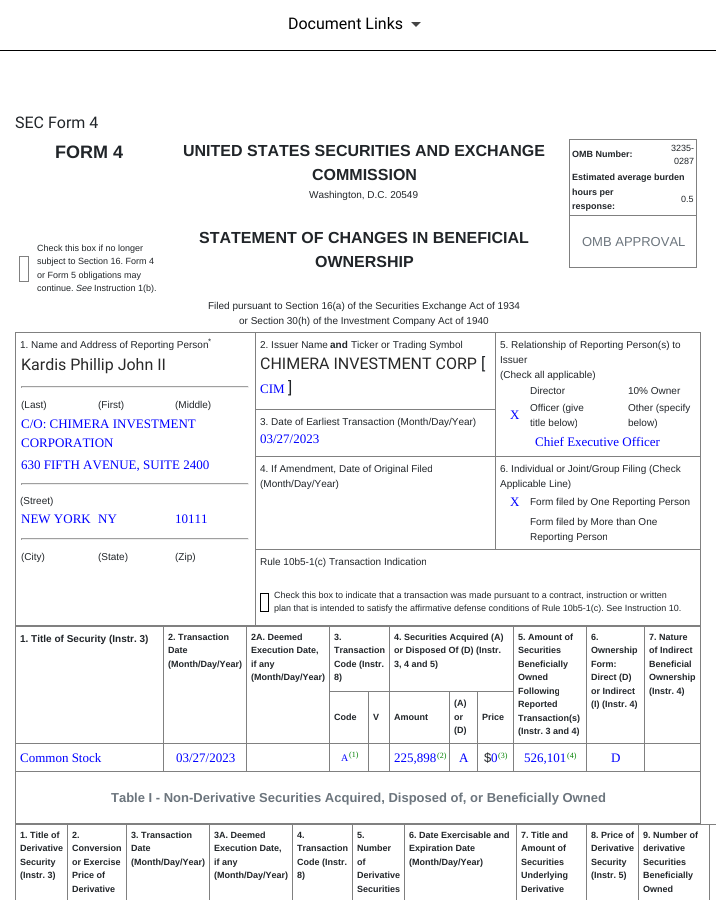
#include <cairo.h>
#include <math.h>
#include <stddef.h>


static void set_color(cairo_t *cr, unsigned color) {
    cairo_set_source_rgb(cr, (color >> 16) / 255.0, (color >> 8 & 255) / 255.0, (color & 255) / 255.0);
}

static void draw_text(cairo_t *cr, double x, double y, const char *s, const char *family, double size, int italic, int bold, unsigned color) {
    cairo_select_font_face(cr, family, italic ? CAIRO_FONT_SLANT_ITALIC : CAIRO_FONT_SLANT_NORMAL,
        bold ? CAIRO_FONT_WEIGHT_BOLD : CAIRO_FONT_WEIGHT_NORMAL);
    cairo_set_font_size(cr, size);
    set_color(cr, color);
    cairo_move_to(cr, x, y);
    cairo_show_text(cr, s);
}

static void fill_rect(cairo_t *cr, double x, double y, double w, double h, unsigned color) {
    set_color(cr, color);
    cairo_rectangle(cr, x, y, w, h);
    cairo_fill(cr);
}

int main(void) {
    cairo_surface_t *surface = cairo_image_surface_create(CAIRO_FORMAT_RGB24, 716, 900);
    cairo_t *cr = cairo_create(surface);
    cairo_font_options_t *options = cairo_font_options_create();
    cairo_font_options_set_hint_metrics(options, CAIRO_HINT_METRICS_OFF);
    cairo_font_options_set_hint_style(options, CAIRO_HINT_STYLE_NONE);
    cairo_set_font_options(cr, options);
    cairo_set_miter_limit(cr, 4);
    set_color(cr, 0xFFFFFF);
    cairo_paint(cr);
    fill_rect(cr, 0, 50, 716, 1, 0x000000);
    draw_text(cr, 288, 29, "Document Links", "Roboto", 16, 0, 0, 0x000000);
    set_color(cr, 0x444444);
    cairo_new_path(cr);
    cairo_move_to(cr, 411, 22);
    cairo_line_to(cr, 421, 22);
    cairo_line_to(cr, 416, 27);
    cairo_close_path(cr);
    cairo_fill(cr);
    draw_text(cr, 15, 128, "SEC Form 4", "Roboto", 16, 0, 0, 0x212529);
    draw_text(cr, 55, 158, "FORM 4", "Liberation Sans", 18, 0, 1, 0x212529);
    draw_text(cr, 183, 156, "UNITED STATES SECURITIES AND EXCHANGE", "Liberation Sans", 16, 0, 1, 0x212529);
    draw_text(cr, 312, 180, "COMMISSION", "Liberation Sans", 16, 0, 1, 0x212529);
    draw_text(cr, 309, 198, "Washington, D.C. 20549", "Liberation Sans", 10, 0, 0, 0x212529);
    draw_text(cr, 199, 243, "STATEMENT OF CHANGES IN BENEFICIAL", "Liberation Sans", 16, 0, 1, 0x212529);
    draw_text(cr, 315, 267, "OWNERSHIP", "Liberation Sans", 16, 0, 1, 0x212529);
    draw_text(cr, 208, 309, "Filed pursuant to Section 16(a) of the Securities Exchange Act of 1934", "Liberation Sans", 10, 0, 0, 0x212529);
    draw_text(cr, 239, 324, "or Section 30(h) of the Investment Company Act of 1940", "Liberation Sans", 10, 0, 0, 0x212529);
    fill_rect(cr, 569, 139, 128, 1, 0x808080);
    fill_rect(cr, 696, 139, 1, 129, 0x808080);
    fill_rect(cr, 569, 267, 128, 1, 0x808080);
    fill_rect(cr, 569, 139, 1, 129, 0x808080);
    fill_rect(cr, 569, 215, 128, 1, 0x808080);
    draw_text(cr, 572, 157, "OMB Number:", "Liberation Sans", 9, 0, 1, 0x212529);
    draw_text(cr, 671, 151, "3235-", "Liberation Sans", 9, 0, 0, 0x212529);
    draw_text(cr, 674, 164, "0287", "Liberation Sans", 9, 0, 0, 0x212529);
    draw_text(cr, 572, 180, "Estimated average burden", "Liberation Sans", 9, 0, 1, 0x212529);
    draw_text(cr, 572, 195, "hours per", "Liberation Sans", 9, 0, 1, 0x212529);
    draw_text(cr, 572, 209, "response:", "Liberation Sans", 9, 0, 1, 0x212529);
    draw_text(cr, 681, 202, "0.5", "Liberation Sans", 9, 0, 0, 0x212529);
    draw_text(cr, 582, 246, "OMB APPROVAL", "Liberation Sans", 13, 0, 0, 0x6C757D);
    fill_rect(cr, 19, 256, 10, 1, 0x808080);
    fill_rect(cr, 28, 256, 1, 26, 0x808080);
    fill_rect(cr, 19, 281, 10, 1, 0x808080);
    fill_rect(cr, 19, 256, 1, 26, 0x808080);
    draw_text(cr, 37, 251, "Check this box if no longer", "Liberation Sans", 9, 0, 0, 0x212529);
    draw_text(cr, 37, 264, "subject to Section 16. Form 4", "Liberation Sans", 9, 0, 0, 0x212529);
    draw_text(cr, 37, 278, "or Form 5 obligations may", "Liberation Sans", 9, 0, 0, 0x212529);
    draw_text(cr, 37, 291, "continue.", "Liberation Sans", 9, 0, 0, 0x212529);
    draw_text(cr, 76, 291, "See", "Liberation Sans", 9, 1, 0, 0x212529);
    draw_text(cr, 94, 291, "Instruction 1(b).", "Liberation Sans", 9, 0, 0, 0x212529);
    fill_rect(cr, 15, 332, 686, 1, 0x808080);
    fill_rect(cr, 700, 332, 1, 294, 0x808080);
    fill_rect(cr, 15, 625, 686, 2, 0x808080);
    fill_rect(cr, 15, 332, 1, 294, 0x808080);
    draw_text(cr, 20, 348, "1. Name and Address of Reporting Person", "Liberation Sans", 10, 0, 0, 0x212529);
    draw_text(cr, 208, 344, "*", "Liberation Sans", 8, 0, 0, 0x212529);
    draw_text(cr, 21, 370, "Kardis Phillip John II", "Roboto", 16, 0, 0, 0x292929);
    fill_rect(cr, 21, 386, 228, 1, 0x9F9F9F);
    fill_rect(cr, 248, 386, 1, 2, 0xEEEEEE);
    fill_rect(cr, 21, 387, 228, 1, 0xEEEEEE);
    fill_rect(cr, 21, 386, 1, 2, 0x9F9F9F);
    draw_text(cr, 21, 408, "(Last)", "Liberation Sans", 10, 0, 0, 0x212529);
    draw_text(cr, 98, 408, "(First)", "Liberation Sans", 10, 0, 0, 0x212529);
    draw_text(cr, 175, 408, "(Middle)", "Liberation Sans", 10, 0, 0, 0x212529);
    draw_text(cr, 21, 428, "C/O: CHIMERA INVESTMENT", "Liberation Serif", 13, 0, 0, 0x0000FF);
    draw_text(cr, 21, 447, "CORPORATION", "Liberation Serif", 13, 0, 0, 0x0000FF);
    draw_text(cr, 21, 469, "630 FIFTH AVENUE, SUITE 2400", "Liberation Serif", 13, 0, 0, 0x0000FF);
    fill_rect(cr, 21, 483, 228, 1, 0x9F9F9F);
    fill_rect(cr, 248, 483, 1, 2, 0xEEEEEE);
    fill_rect(cr, 21, 484, 228, 1, 0xEEEEEE);
    fill_rect(cr, 21, 483, 1, 2, 0x9F9F9F);
    draw_text(cr, 20, 504, "(Street)", "Liberation Sans", 10, 0, 0, 0x212529);
    draw_text(cr, 21, 523, "NEW YORK", "Liberation Serif", 13, 0, 0, 0x0000FF);
    draw_text(cr, 98, 523, "NY", "Liberation Serif", 13, 0, 0, 0x0000FF);
    draw_text(cr, 175, 523, "10111", "Liberation Serif", 13, 0, 0, 0x0000FF);
    fill_rect(cr, 21, 538, 228, 1, 0x9F9F9F);
    fill_rect(cr, 248, 538, 1, 2, 0xEEEEEE);
    fill_rect(cr, 21, 539, 228, 1, 0xEEEEEE);
    fill_rect(cr, 21, 538, 1, 2, 0x9F9F9F);
    draw_text(cr, 21, 560, "(City)", "Liberation Sans", 10, 0, 0, 0x212529);
    draw_text(cr, 98, 560, "(State)", "Liberation Sans", 10, 0, 0, 0x212529);
    draw_text(cr, 175, 560, "(Zip)", "Liberation Sans", 10, 0, 0, 0x212529);
    draw_text(cr, 260, 348, "2. Issuer Name", "Liberation Sans", 10, 0, 0, 0x212529);
    draw_text(cr, 330, 348, "and", "Liberation Sans", 10, 0, 1, 0x212529);
    draw_text(cr, 351, 348, "Ticker or Trading Symbol", "Liberation Sans", 10, 0, 0, 0x212529);
    draw_text(cr, 260, 369, "CHIMERA INVESTMENT CORP", "Roboto", 16, 0, 0, 0x292929);
    draw_text(cr, 481, 369, "[", "Roboto", 16, 0, 0, 0x212529);
    draw_text(cr, 260, 393, "CIM", "Liberation Serif", 13, 0, 0, 0x0000FF);
    draw_text(cr, 288, 393, "]", "Roboto", 16, 0, 0, 0x212529);
    fill_rect(cr, 255, 409, 241, 1, 0x808080);
    fill_rect(cr, 495, 456, 206, 1, 0x808080);
    fill_rect(cr, 255, 549, 446, 1, 0x808080);
    fill_rect(cr, 495, 456, 1, 94, 0x808080);
    fill_rect(cr, 255, 456, 241, 1, 0x808080);
    fill_rect(cr, 495, 332, 1, 125, 0x808080);
    draw_text(cr, 500, 348, "5. Relationship of Reporting Person(s) to", "Liberation Sans", 10, 0, 0, 0x212529);
    draw_text(cr, 500, 363, "Issuer", "Liberation Sans", 10, 0, 0, 0x212529);
    draw_text(cr, 500, 378, "(Check all applicable)", "Liberation Sans", 10, 0, 0, 0x212529);
    draw_text(cr, 530, 394, "Director", "Liberation Sans", 10, 0, 0, 0x212529);
    draw_text(cr, 628, 394, "10% Owner", "Liberation Sans", 10, 0, 0, 0x212529);
    draw_text(cr, 510, 419, "X", "Liberation Serif", 13, 0, 0, 0x0000FF);
    draw_text(cr, 530, 411, "Officer (give", "Liberation Sans", 10, 0, 0, 0x212529);
    draw_text(cr, 530, 426, "title below)", "Liberation Sans", 10, 0, 0, 0x212529);
    draw_text(cr, 628, 411, "Other (specify", "Liberation Sans", 10, 0, 0, 0x212529);
    draw_text(cr, 628, 426, "below)", "Liberation Sans", 10, 0, 0, 0x212529);
    draw_text(cr, 535, 446, "Chief Executive Officer", "Liberation Serif", 13, 0, 0, 0x0000FF);
    fill_rect(cr, 255, 549, 1, 77, 0x808080);
    fill_rect(cr, 255, 456, 1, 94, 0x808080);
    fill_rect(cr, 255, 332, 1, 125, 0x808080);
    draw_text(cr, 260, 425, "3. Date of Earliest Transaction (Month/Day/Year)", "Liberation Sans", 10, 0, 0, 0x212529);
    draw_text(cr, 260, 443, "03/27/2023", "Liberation Serif", 13, 0, 0, 0x0000FF);
    draw_text(cr, 260, 472, "4. If Amendment, Date of Original Filed", "Liberation Sans", 10, 0, 0, 0x212529);
    draw_text(cr, 260, 487, "(Month/Day/Year)", "Liberation Sans", 10, 0, 0, 0x212529);
    draw_text(cr, 500, 472, "6. Individual or Joint/Group Filing (Check", "Liberation Sans", 10, 0, 0, 0x212529);
    draw_text(cr, 500, 487, "Applicable Line)", "Liberation Sans", 10, 0, 0, 0x212529);
    draw_text(cr, 510, 506, "X", "Liberation Serif", 13, 0, 0, 0x0000FF);
    draw_text(cr, 530, 505, "Form filed by One Reporting Person", "Liberation Sans", 10, 0, 0, 0x212529);
    draw_text(cr, 530, 525, "Form filed by More than One", "Liberation Sans", 10, 0, 0, 0x212529);
    draw_text(cr, 530, 540, "Reporting Person", "Liberation Sans", 10, 0, 0, 0x212529);
    draw_text(cr, 260, 565, "Rule 10b5-1(c) Transaction Indication", "Liberation Sans", 10, 0, 0, 0x212529);
    fill_rect(cr, 260, 593, 9, 1, 0x000000);
    fill_rect(cr, 268, 593, 1, 19, 0x000000);
    fill_rect(cr, 260, 611, 9, 1, 0x000000);
    fill_rect(cr, 260, 593, 1, 19, 0x000000);
    draw_text(cr, 274, 598, "Check this box to indicate that a transaction was made pursuant to a contract, instruction or written", "Liberation Sans", 9, 0, 0, 0x212529);
    draw_text(cr, 274, 611, "plan that is intended to satisfy the affirmative defense conditions of Rule 10b5-1(c). See Instruction 10.", "Liberation Sans", 9, 0, 0, 0x212529);
    fill_rect(cr, 700, 626, 1, 198, 0x808080);
    fill_rect(cr, 15, 823, 686, 1, 0x808080);
    fill_rect(cr, 15, 626, 1, 198, 0x808080);
    draw_text(cr, 20, 642, "1. Title of Security (Instr. 3)", "Liberation Sans", 10, 0, 1, 0x212529);
    fill_rect(cr, 644, 743, 57, 1, 0x808080);
    fill_rect(cr, 644, 771, 57, 1, 0x808080);
    fill_rect(cr, 644, 743, 1, 29, 0x808080);
    fill_rect(cr, 586, 743, 59, 1, 0x808080);
    fill_rect(cr, 586, 771, 59, 1, 0x808080);
    fill_rect(cr, 586, 743, 1, 29, 0x808080);
    fill_rect(cr, 513, 743, 74, 1, 0x808080);
    fill_rect(cr, 513, 771, 74, 1, 0x808080);
    fill_rect(cr, 513, 743, 1, 29, 0x808080);
    fill_rect(cr, 477, 743, 37, 1, 0x808080);
    fill_rect(cr, 477, 771, 37, 1, 0x808080);
    fill_rect(cr, 477, 743, 1, 29, 0x808080);
    fill_rect(cr, 449, 743, 29, 1, 0x808080);
    fill_rect(cr, 449, 771, 29, 1, 0x808080);
    fill_rect(cr, 449, 743, 1, 29, 0x808080);
    fill_rect(cr, 389, 743, 61, 1, 0x808080);
    fill_rect(cr, 389, 771, 61, 1, 0x808080);
    fill_rect(cr, 389, 743, 1, 29, 0x808080);
    fill_rect(cr, 368, 743, 22, 1, 0x808080);
    fill_rect(cr, 368, 771, 22, 1, 0x808080);
    fill_rect(cr, 368, 743, 1, 29, 0x808080);
    fill_rect(cr, 329, 743, 40, 1, 0x808080);
    fill_rect(cr, 329, 771, 40, 1, 0x808080);
    fill_rect(cr, 329, 743, 1, 29, 0x808080);
    fill_rect(cr, 246, 743, 84, 1, 0x808080);
    fill_rect(cr, 246, 771, 84, 1, 0x808080);
    fill_rect(cr, 246, 743, 1, 29, 0x808080);
    fill_rect(cr, 163, 743, 84, 1, 0x808080);
    fill_rect(cr, 163, 771, 84, 1, 0x808080);
    fill_rect(cr, 163, 743, 1, 29, 0x808080);
    fill_rect(cr, 15, 743, 149, 1, 0x808080);
    fill_rect(cr, 163, 626, 1, 118, 0x808080);
    draw_text(cr, 168, 640, "2. Transaction", "Liberation Sans", 9, 0, 1, 0x212529);
    draw_text(cr, 168, 653, "Date", "Liberation Sans", 9, 0, 1, 0x212529);
    draw_text(cr, 168, 667, "(Month/Day/Year)", "Liberation Sans", 9, 0, 1, 0x212529);
    fill_rect(cr, 246, 626, 1, 118, 0x808080);
    draw_text(cr, 251, 640, "2A. Deemed", "Liberation Sans", 9, 0, 1, 0x212529);
    draw_text(cr, 251, 653, "Execution Date,", "Liberation Sans", 9, 0, 1, 0x212529);
    draw_text(cr, 251, 667, "if any", "Liberation Sans", 9, 0, 1, 0x212529);
    draw_text(cr, 251, 680, "(Month/Day/Year)", "Liberation Sans", 9, 0, 1, 0x212529);
    draw_text(cr, 334, 640, "3.", "Liberation Sans", 9, 0, 1, 0x212529);
    draw_text(cr, 334, 653, "Transaction", "Liberation Sans", 9, 0, 1, 0x212529);
    draw_text(cr, 334, 667, "Code (Instr.", "Liberation Sans", 9, 0, 1, 0x212529);
    draw_text(cr, 334, 680, "8)", "Liberation Sans", 9, 0, 1, 0x212529);
    fill_rect(cr, 477, 691, 37, 1, 0x808080);
    fill_rect(cr, 477, 691, 1, 53, 0x808080);
    fill_rect(cr, 449, 691, 29, 1, 0x808080);
    fill_rect(cr, 449, 691, 1, 53, 0x808080);
    fill_rect(cr, 389, 691, 61, 1, 0x808080);
    fill_rect(cr, 389, 691, 1, 53, 0x808080);
    fill_rect(cr, 368, 691, 22, 1, 0x808080);
    fill_rect(cr, 389, 626, 1, 66, 0x808080);
    draw_text(cr, 394, 640, "4. Securities Acquired (A)", "Liberation Sans", 9, 0, 1, 0x212529);
    draw_text(cr, 394, 653, "or Disposed Of (D) (Instr.", "Liberation Sans", 9, 0, 1, 0x212529);
    draw_text(cr, 394, 667, "3, 4 and 5)", "Liberation Sans", 9, 0, 1, 0x212529);
    fill_rect(cr, 513, 626, 1, 118, 0x808080);
    draw_text(cr, 518, 640, "5. Amount of", "Liberation Sans", 9, 0, 1, 0x212529);
    draw_text(cr, 518, 653, "Securities", "Liberation Sans", 9, 0, 1, 0x212529);
    draw_text(cr, 518, 667, "Beneficially", "Liberation Sans", 9, 0, 1, 0x212529);
    draw_text(cr, 518, 680, "Owned", "Liberation Sans", 9, 0, 1, 0x212529);
    draw_text(cr, 518, 694, "Following", "Liberation Sans", 9, 0, 1, 0x212529);
    draw_text(cr, 518, 707, "Reported", "Liberation Sans", 9, 0, 1, 0x212529);
    draw_text(cr, 518, 721, "Transaction(s)", "Liberation Sans", 9, 0, 1, 0x212529);
    draw_text(cr, 518, 734, "(Instr. 3 and 4)", "Liberation Sans", 9, 0, 1, 0x212529);
    fill_rect(cr, 586, 626, 1, 118, 0x808080);
    draw_text(cr, 591, 640, "6.", "Liberation Sans", 9, 0, 1, 0x212529);
    draw_text(cr, 591, 653, "Ownership", "Liberation Sans", 9, 0, 1, 0x212529);
    draw_text(cr, 591, 667, "Form:", "Liberation Sans", 9, 0, 1, 0x212529);
    draw_text(cr, 591, 680, "Direct (D)", "Liberation Sans", 9, 0, 1, 0x212529);
    draw_text(cr, 591, 694, "or Indirect", "Liberation Sans", 9, 0, 1, 0x212529);
    draw_text(cr, 591, 707, "(I) (Instr. 4)", "Liberation Sans", 9, 0, 1, 0x212529);
    fill_rect(cr, 644, 626, 1, 118, 0x808080);
    draw_text(cr, 649, 640, "7. Nature", "Liberation Sans", 9, 0, 1, 0x212529);
    draw_text(cr, 649, 653, "of Indirect", "Liberation Sans", 9, 0, 1, 0x212529);
    draw_text(cr, 649, 667, "Beneficial", "Liberation Sans", 9, 0, 1, 0x212529);
    draw_text(cr, 649, 680, "Ownership", "Liberation Sans", 9, 0, 1, 0x212529);
    draw_text(cr, 649, 694, "(Instr. 4)", "Liberation Sans", 9, 0, 1, 0x212529);
    fill_rect(cr, 368, 691, 1, 53, 0x808080);
    fill_rect(cr, 329, 691, 40, 1, 0x808080);
    fill_rect(cr, 329, 626, 1, 118, 0x808080);
    draw_text(cr, 334, 720, "Code", "Liberation Sans", 9, 0, 1, 0x212529);
    draw_text(cr, 373, 720, "V", "Liberation Sans", 9, 0, 1, 0x212529);
    draw_text(cr, 394, 720, "Amount", "Liberation Sans", 9, 0, 1, 0x212529);
    draw_text(cr, 454, 706, "(A)", "Liberation Sans", 9, 0, 1, 0x212529);
    draw_text(cr, 454, 720, "or", "Liberation Sans", 9, 0, 1, 0x212529);
    draw_text(cr, 454, 733, "(D)", "Liberation Sans", 9, 0, 1, 0x212529);
    draw_text(cr, 482, 720, "Price", "Liberation Sans", 9, 0, 1, 0x212529);
    fill_rect(cr, 15, 771, 149, 1, 0x808080);
    draw_text(cr, 20, 762, "Common Stock", "Liberation Serif", 13, 0, 0, 0x0000FF);
    draw_text(cr, 176, 762, "03/27/2023", "Liberation Serif", 13, 0, 0, 0x0000FF);
    draw_text(cr, 341, 761, "A", "Liberation Serif", 10, 0, 0, 0x0000FF);
    draw_text(cr, 349, 757, "(1)", "Liberation Serif", 8, 0, 0, 0x008000);
    draw_text(cr, 394, 762, "225,898", "Liberation Serif", 13, 0, 0, 0x0000FF);
    draw_text(cr, 437, 758, "(2)", "Liberation Serif", 8, 0, 0, 0x008000);
    draw_text(cr, 459, 762, "A", "Liberation Serif", 13, 0, 0, 0x0000FF);
    draw_text(cr, 484, 762, "$", "Liberation Sans", 13, 0, 0, 0x212529);
    fill_rect(cr, 491, 750, 1, 15, 0xFFFFFF);
    draw_text(cr, 491, 762, "0", "Liberation Serif", 13, 0, 0, 0x0000FF);
    draw_text(cr, 498, 758, "(3)", "Liberation Serif", 8, 0, 0, 0x008000);
    draw_text(cr, 524, 762, "526,101", "Liberation Serif", 13, 0, 0, 0x0000FF);
    draw_text(cr, 567, 758, "(4)", "Liberation Serif", 8, 0, 0, 0x008000);
    draw_text(cr, 611, 762, "D", "Liberation Serif", 13, 0, 0, 0x0000FF);
    draw_text(cr, 111, 802, "Table I - Non-Derivative Securities Acquired, Disposed of, or Beneficially Owned", "Liberation Sans", 13, 0, 1, 0x6C757D);
    fill_rect(cr, 15, 824, 701, 1, 0x808080);
    fill_rect(cr, 15, 824, 1, 76, 0x808080);
    draw_text(cr, 20, 838, "1. Title of", "Liberation Sans", 9, 0, 1, 0x212529);
    draw_text(cr, 20, 851, "Derivative", "Liberation Sans", 9, 0, 1, 0x212529);
    draw_text(cr, 20, 865, "Security", "Liberation Sans", 9, 0, 1, 0x212529);
    draw_text(cr, 20, 878, "(Instr. 3)", "Liberation Sans", 9, 0, 1, 0x212529);
    fill_rect(cr, 67, 824, 1, 76, 0x808080);
    draw_text(cr, 72, 838, "2.", "Liberation Sans", 9, 0, 1, 0x212529);
    draw_text(cr, 72, 851, "Conversion", "Liberation Sans", 9, 0, 1, 0x212529);
    draw_text(cr, 72, 865, "or Exercise", "Liberation Sans", 9, 0, 1, 0x212529);
    draw_text(cr, 72, 878, "Price of", "Liberation Sans", 9, 0, 1, 0x212529);
    draw_text(cr, 72, 892, "Derivative", "Liberation Sans", 9, 0, 1, 0x212529);
    fill_rect(cr, 126, 824, 1, 76, 0x808080);
    draw_text(cr, 131, 838, "3. Transaction", "Liberation Sans", 9, 0, 1, 0x212529);
    draw_text(cr, 131, 851, "Date", "Liberation Sans", 9, 0, 1, 0x212529);
    draw_text(cr, 131, 865, "(Month/Day/Year)", "Liberation Sans", 9, 0, 1, 0x212529);
    fill_rect(cr, 209, 824, 1, 76, 0x808080);
    draw_text(cr, 214, 838, "3A. Deemed", "Liberation Sans", 9, 0, 1, 0x212529);
    draw_text(cr, 214, 851, "Execution Date,", "Liberation Sans", 9, 0, 1, 0x212529);
    draw_text(cr, 214, 865, "if any", "Liberation Sans", 9, 0, 1, 0x212529);
    draw_text(cr, 214, 878, "(Month/Day/Year)", "Liberation Sans", 9, 0, 1, 0x212529);
    fill_rect(cr, 292, 824, 1, 76, 0x808080);
    draw_text(cr, 297, 838, "4.", "Liberation Sans", 9, 0, 1, 0x212529);
    draw_text(cr, 297, 851, "Transaction", "Liberation Sans", 9, 0, 1, 0x212529);
    draw_text(cr, 297, 865, "Code (Instr.", "Liberation Sans", 9, 0, 1, 0x212529);
    draw_text(cr, 297, 878, "8)", "Liberation Sans", 9, 0, 1, 0x212529);
    fill_rect(cr, 352, 824, 1, 76, 0x808080);
    draw_text(cr, 357, 838, "5.", "Liberation Sans", 9, 0, 1, 0x212529);
    draw_text(cr, 357, 851, "Number", "Liberation Sans", 9, 0, 1, 0x212529);
    draw_text(cr, 357, 865, "of", "Liberation Sans", 9, 0, 1, 0x212529);
    draw_text(cr, 357, 878, "Derivative", "Liberation Sans", 9, 0, 1, 0x212529);
    draw_text(cr, 357, 892, "Securities", "Liberation Sans", 9, 0, 1, 0x212529);
    fill_rect(cr, 404, 824, 1, 76, 0x808080);
    draw_text(cr, 409, 838, "6. Date Exercisable and", "Liberation Sans", 9, 0, 1, 0x212529);
    draw_text(cr, 409, 851, "Expiration Date", "Liberation Sans", 9, 0, 1, 0x212529);
    draw_text(cr, 409, 865, "(Month/Day/Year)", "Liberation Sans", 9, 0, 1, 0x212529);
    fill_rect(cr, 516, 824, 1, 76, 0x808080);
    draw_text(cr, 521, 838, "7. Title and", "Liberation Sans", 9, 0, 1, 0x212529);
    draw_text(cr, 521, 851, "Amount of", "Liberation Sans", 9, 0, 1, 0x212529);
    draw_text(cr, 521, 865, "Securities", "Liberation Sans", 9, 0, 1, 0x212529);
    draw_text(cr, 521, 878, "Underlying", "Liberation Sans", 9, 0, 1, 0x212529);
    draw_text(cr, 521, 892, "Derivative", "Liberation Sans", 9, 0, 1, 0x212529);
    fill_rect(cr, 586, 824, 1, 76, 0x808080);
    draw_text(cr, 591, 838, "8. Price of", "Liberation Sans", 9, 0, 1, 0x212529);
    draw_text(cr, 591, 851, "Derivative", "Liberation Sans", 9, 0, 1, 0x212529);
    draw_text(cr, 591, 865, "Security", "Liberation Sans", 9, 0, 1, 0x212529);
    draw_text(cr, 591, 878, "(Instr. 5)", "Liberation Sans", 9, 0, 1, 0x212529);
    fill_rect(cr, 638, 824, 1, 76, 0x808080);
    draw_text(cr, 643, 838, "9. Number of", "Liberation Sans", 9, 0, 1, 0x212529);
    draw_text(cr, 643, 851, "derivative", "Liberation Sans", 9, 0, 1, 0x212529);
    draw_text(cr, 643, 865, "Securities", "Liberation Sans", 9, 0, 1, 0x212529);
    draw_text(cr, 643, 878, "Beneficially", "Liberation Sans", 9, 0, 1, 0x212529);
    draw_text(cr, 643, 892, "Owned", "Liberation Sans", 9, 0, 1, 0x212529);
    fill_rect(cr, 709, 824, 1, 76, 0x808080);
    cairo_surface_write_to_png(surface, "output.png");
    cairo_font_options_destroy(options);
    cairo_destroy(cr);
    cairo_surface_destroy(surface);
    return 0;
}
